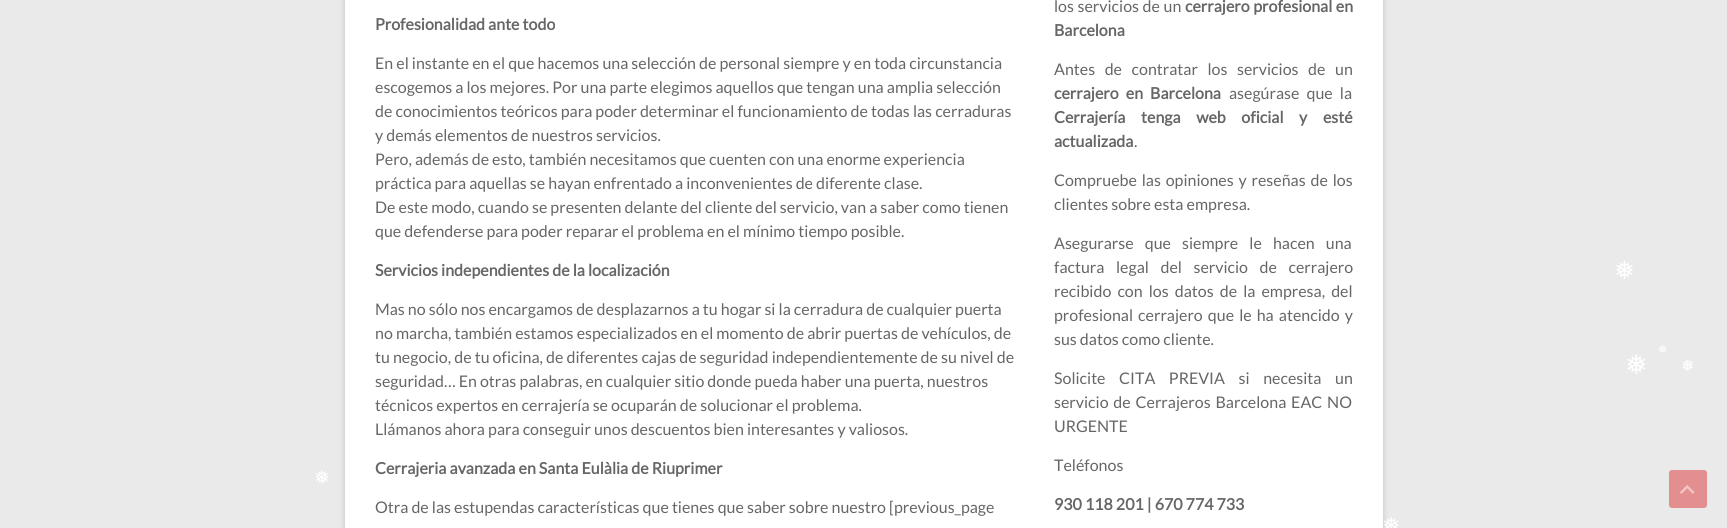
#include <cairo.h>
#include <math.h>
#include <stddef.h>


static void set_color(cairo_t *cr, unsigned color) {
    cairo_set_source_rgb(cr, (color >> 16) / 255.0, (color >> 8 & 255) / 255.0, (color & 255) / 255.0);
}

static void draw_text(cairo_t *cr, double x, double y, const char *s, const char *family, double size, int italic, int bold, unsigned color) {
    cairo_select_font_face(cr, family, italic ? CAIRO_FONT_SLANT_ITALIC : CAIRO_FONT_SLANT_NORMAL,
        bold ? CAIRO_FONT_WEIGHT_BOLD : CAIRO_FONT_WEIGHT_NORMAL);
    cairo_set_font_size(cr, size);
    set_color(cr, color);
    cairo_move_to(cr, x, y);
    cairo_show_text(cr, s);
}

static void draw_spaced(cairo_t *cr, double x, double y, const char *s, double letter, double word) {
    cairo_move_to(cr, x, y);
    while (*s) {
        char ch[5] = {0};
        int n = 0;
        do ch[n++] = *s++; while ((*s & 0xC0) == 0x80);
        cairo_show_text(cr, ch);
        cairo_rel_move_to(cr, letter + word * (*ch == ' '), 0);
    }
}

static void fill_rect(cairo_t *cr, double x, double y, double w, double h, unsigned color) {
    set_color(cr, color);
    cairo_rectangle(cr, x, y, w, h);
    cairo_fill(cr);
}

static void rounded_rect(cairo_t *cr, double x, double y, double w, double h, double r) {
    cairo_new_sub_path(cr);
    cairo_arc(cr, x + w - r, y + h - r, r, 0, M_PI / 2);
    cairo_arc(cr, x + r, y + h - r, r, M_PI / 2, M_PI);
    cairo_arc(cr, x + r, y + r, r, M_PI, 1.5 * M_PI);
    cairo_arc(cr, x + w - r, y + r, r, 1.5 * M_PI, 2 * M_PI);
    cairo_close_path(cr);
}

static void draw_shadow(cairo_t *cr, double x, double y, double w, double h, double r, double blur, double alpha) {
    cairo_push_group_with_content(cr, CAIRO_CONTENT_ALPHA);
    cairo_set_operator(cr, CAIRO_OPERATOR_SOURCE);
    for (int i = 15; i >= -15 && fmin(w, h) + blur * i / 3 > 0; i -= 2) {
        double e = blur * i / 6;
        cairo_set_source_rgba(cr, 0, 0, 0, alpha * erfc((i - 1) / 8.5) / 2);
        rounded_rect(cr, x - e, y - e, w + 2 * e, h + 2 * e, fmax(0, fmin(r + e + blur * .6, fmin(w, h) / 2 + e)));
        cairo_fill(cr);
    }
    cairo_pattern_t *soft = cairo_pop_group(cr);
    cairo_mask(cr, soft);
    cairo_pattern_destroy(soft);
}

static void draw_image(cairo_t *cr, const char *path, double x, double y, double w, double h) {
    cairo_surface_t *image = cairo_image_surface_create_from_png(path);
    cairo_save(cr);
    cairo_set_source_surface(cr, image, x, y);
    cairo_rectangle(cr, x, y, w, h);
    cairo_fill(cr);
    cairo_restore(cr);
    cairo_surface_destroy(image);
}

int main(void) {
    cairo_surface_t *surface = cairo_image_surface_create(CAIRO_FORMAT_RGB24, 1727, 528);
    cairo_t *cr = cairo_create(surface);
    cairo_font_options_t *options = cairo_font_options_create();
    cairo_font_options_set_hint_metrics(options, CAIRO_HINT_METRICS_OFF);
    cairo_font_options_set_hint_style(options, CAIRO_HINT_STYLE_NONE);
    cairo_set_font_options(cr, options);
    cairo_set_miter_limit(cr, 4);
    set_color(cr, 0xEAEAEA);
    cairo_paint(cr);
    set_color(cr, 0x646464);
    draw_shadow(cr, 345, -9, 1038, 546, 0, 3, 0.3);
    fill_rect(cr, 345, 0, 1038, 528, 0xFFFFFF);
    draw_text(cr, 375, 30, "Profesionalidad ante todo", "Lato", 16, 0, 1, 0x666666);
    draw_text(cr, 375, 69, "En el instante en el que hacemos una selección de personal siempre y en toda circunstancia", "Lato", 16, 0, 0, 0x666666);
    draw_text(cr, 375, 93, "escogemos a los mejores. Por una parte elegimos aquellos que tengan una amplia selección", "Lato", 16, 0, 0, 0x666666);
    draw_text(cr, 375, 117, "de conocimientos teóricos para poder determinar el funcionamiento de todas las cerraduras", "Lato", 16, 0, 0, 0x666666);
    draw_text(cr, 375, 141, "y demás elementos de nuestros servicios.", "Lato", 16, 0, 0, 0x666666);
    draw_text(cr, 375, 165, "Pero, además de esto, también necesitamos que cuenten con una enorme experiencia", "Lato", 16, 0, 0, 0x666666);
    draw_text(cr, 375, 189, "práctica para aquellas se hayan enfrentado a inconvenientes de diferente clase.", "Lato", 16, 0, 0, 0x666666);
    draw_text(cr, 375, 213, "De este modo, cuando se presenten delante del cliente del servicio, van a saber como tienen", "Lato", 16, 0, 0, 0x666666);
    draw_text(cr, 375, 237, "que defenderse para poder reparar el problema en el mínimo tiempo posible.", "Lato", 16, 0, 0, 0x666666);
    draw_text(cr, 375, 276, "Servicios independientes de la localización", "Lato", 16, 0, 1, 0x666666);
    draw_text(cr, 375, 315, "Mas no sólo nos encargamos de desplazarnos a tu hogar si la cerradura de cualquier puerta", "Lato", 16, 0, 0, 0x666666);
    draw_text(cr, 375, 339, "no marcha, también estamos especializados en el momento de abrir puertas de vehículos, de", "Lato", 16, 0, 0, 0x666666);
    draw_text(cr, 375, 363, "tu negocio, de tu oficina, de diferentes cajas de seguridad independientemente de su nivel de", "Lato", 16, 0, 0, 0x666666);
    draw_text(cr, 375, 387, "seguridad… En otras palabras, en cualquier sitio donde pueda haber una puerta, nuestros", "Lato", 16, 0, 0, 0x666666);
    draw_text(cr, 375, 411, "técnicos expertos en cerrajería se ocuparán de solucionar el problema.", "Lato", 16, 0, 0, 0x666666);
    draw_text(cr, 375, 435, "Llámanos ahora para conseguir unos descuentos bien interesantes y valiosos.", "Lato", 16, 0, 0, 0x666666);
    draw_text(cr, 375, 474, "Cerrajeria avanzada en Santa Eulàlia de Riuprimer", "Lato", 16, 0, 1, 0x666666);
    draw_text(cr, 375, 513, "Otra de las estupendas características que tienes que saber sobre nuestro [previous_page", "Lato", 16, 0, 0, 0x666666);
    draw_spaced(cr, 1054, 12, "los servicios de un", 0, 0.5);
    cairo_select_font_face(cr, "Lato", CAIRO_FONT_SLANT_NORMAL, CAIRO_FONT_WEIGHT_BOLD);
    draw_spaced(cr, 1185, 12, "cerrajero profesional en", 0, 0.5);
    draw_text(cr, 1054, 36, "Barcelona", "Lato", 16, 0, 1, 0x666666);
    cairo_select_font_face(cr, "Lato", CAIRO_FONT_SLANT_NORMAL, CAIRO_FONT_WEIGHT_NORMAL);
    draw_spaced(cr, 1054, 75, "Antes de contratar los servicios de un", 0, 6.5);
    cairo_select_font_face(cr, "Lato", CAIRO_FONT_SLANT_NORMAL, CAIRO_FONT_WEIGHT_BOLD);
    draw_spaced(cr, 1054, 99, "cerrajero en Barcelona", 0, 4);
    cairo_select_font_face(cr, "Lato", CAIRO_FONT_SLANT_NORMAL, CAIRO_FONT_WEIGHT_NORMAL);
    draw_spaced(cr, 1229, 99, "asegúrase que la", 0, 4);
    cairo_select_font_face(cr, "Lato", CAIRO_FONT_SLANT_NORMAL, CAIRO_FONT_WEIGHT_BOLD);
    draw_spaced(cr, 1054, 123, "Cerrajería tenga web oficial y esté", 0, 12.5);
    draw_text(cr, 1054, 147, "actualizada", "Lato", 16, 0, 1, 0x666666);
    draw_text(cr, 1134, 147, ".", "Lato", 16, 0, 0, 0x666666);
    draw_spaced(cr, 1054, 186, "Compruebe las opiniones y reseñas de los", 0, 1.75);
    draw_text(cr, 1054, 210, "clientes sobre esta empresa.", "Lato", 16, 0, 0, 0x666666);
    draw_spaced(cr, 1054, 249, "Asegurarse que siempre le hacen una", 0, 8);
    draw_spaced(cr, 1054, 273, "factura legal del servicio de cerrajero", 0, 8.5);
    draw_spaced(cr, 1054, 297, "recibido con los datos de la empresa, del", 0, 3);
    draw_spaced(cr, 1054, 321, "profesional cerrajero que le ha atencido y", 0, 2);
    draw_text(cr, 1054, 345, "sus datos como cliente.", "Lato", 16, 0, 0, 0x666666);
    draw_spaced(cr, 1054, 384, "Solicite CITA PREVIA si necesita un", 0, 10.5);
    draw_spaced(cr, 1054, 408, "servicio de Cerrajeros Barcelona EAC NO", 0, 1.75);
    draw_text(cr, 1054, 432, "URGENTE", "Lato", 16, 0, 0, 0x666666);
    draw_text(cr, 1054, 471, "Teléfonos", "Lato", 16, 0, 0, 0x666666);
    draw_text(cr, 1054, 510, "930 118 201 | 670 774 733", "Lato", 16, 0, 1, 0x666666);
    set_color(cr, 0xE48F8F);
    rounded_rect(cr, 1669, 470, 38, 38, 3);
    cairo_fill(cr);
    draw_image(cr, "assets/img1.png", 1680, 485, 15, 9);
    draw_text(cr, 1614, 279, "❅", "DejaVu Sans", 25, 0, 0, 0xFFFFFF);
    draw_text(cr, 1658, 353, "❅", "DejaVu Sans", 11, 0, 0, 0xFFFFFF);
    draw_text(cr, 1625, 374, "❅", "DejaVu Sans", 27, 0, 0, 0xFFFFFF);
    draw_text(cr, 1681, 371, "❅", "DejaVu Sans", 16, 0, 0, 0xFFFFFF);
    draw_text(cr, 314, 484, "❅", "DejaVu Sans", 19, 0, 0, 0xFFFFFF);
    draw_text(cr, 1382, 533, "❅", "DejaVu Sans", 22, 0, 0, 0xFFFFFF);
    cairo_surface_write_to_png(surface, "output.png");
    cairo_font_options_destroy(options);
    cairo_destroy(cr);
    cairo_surface_destroy(surface);
    return 0;
}
